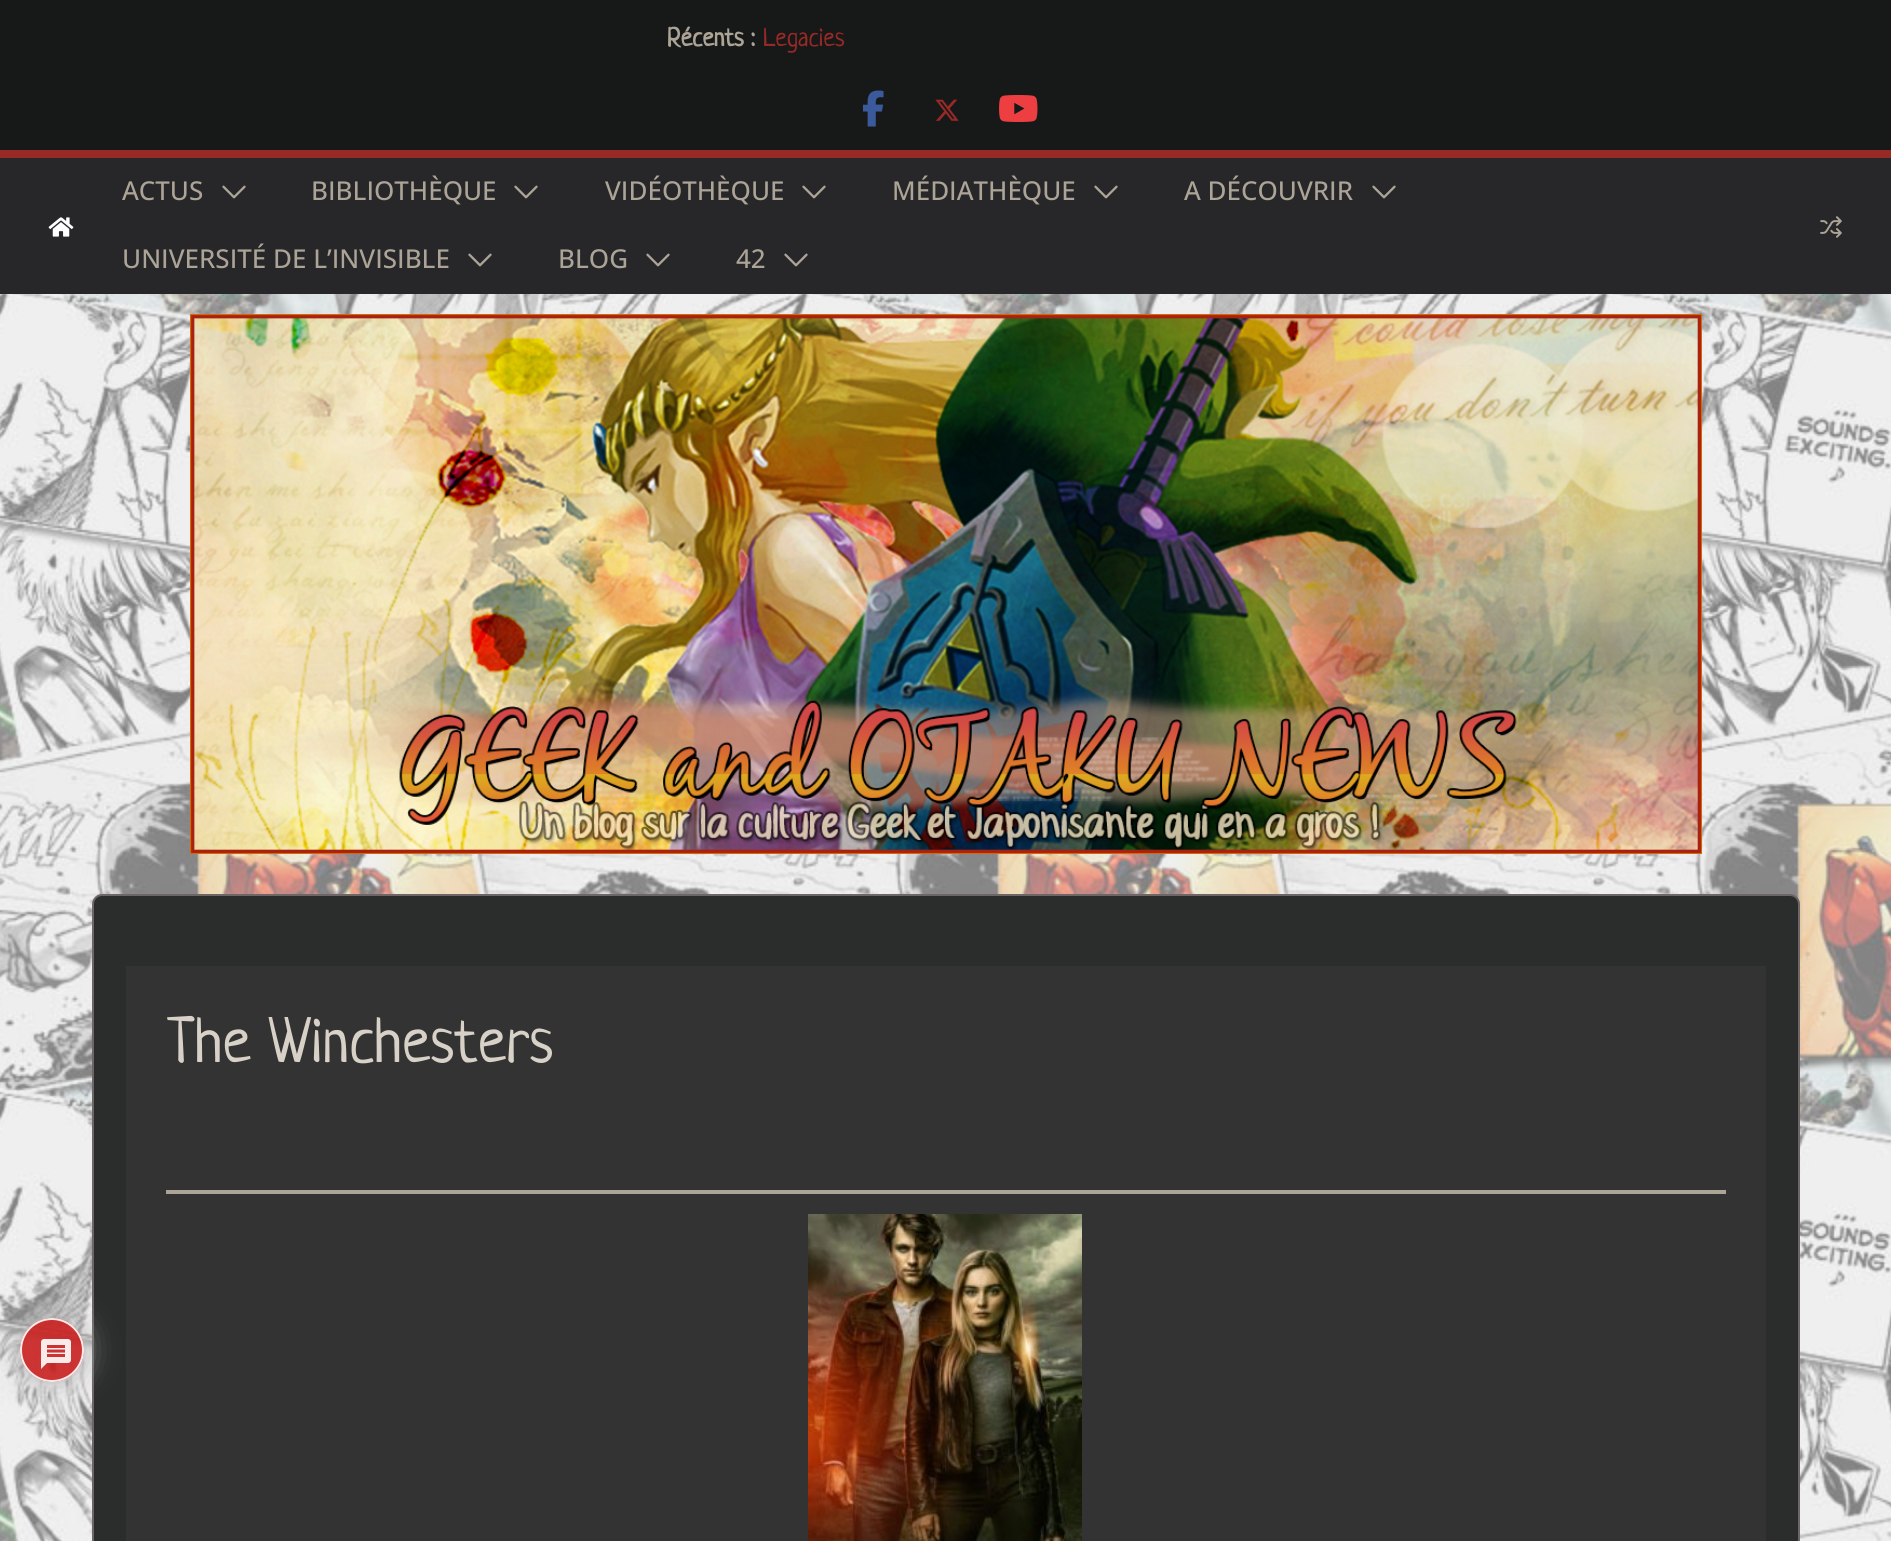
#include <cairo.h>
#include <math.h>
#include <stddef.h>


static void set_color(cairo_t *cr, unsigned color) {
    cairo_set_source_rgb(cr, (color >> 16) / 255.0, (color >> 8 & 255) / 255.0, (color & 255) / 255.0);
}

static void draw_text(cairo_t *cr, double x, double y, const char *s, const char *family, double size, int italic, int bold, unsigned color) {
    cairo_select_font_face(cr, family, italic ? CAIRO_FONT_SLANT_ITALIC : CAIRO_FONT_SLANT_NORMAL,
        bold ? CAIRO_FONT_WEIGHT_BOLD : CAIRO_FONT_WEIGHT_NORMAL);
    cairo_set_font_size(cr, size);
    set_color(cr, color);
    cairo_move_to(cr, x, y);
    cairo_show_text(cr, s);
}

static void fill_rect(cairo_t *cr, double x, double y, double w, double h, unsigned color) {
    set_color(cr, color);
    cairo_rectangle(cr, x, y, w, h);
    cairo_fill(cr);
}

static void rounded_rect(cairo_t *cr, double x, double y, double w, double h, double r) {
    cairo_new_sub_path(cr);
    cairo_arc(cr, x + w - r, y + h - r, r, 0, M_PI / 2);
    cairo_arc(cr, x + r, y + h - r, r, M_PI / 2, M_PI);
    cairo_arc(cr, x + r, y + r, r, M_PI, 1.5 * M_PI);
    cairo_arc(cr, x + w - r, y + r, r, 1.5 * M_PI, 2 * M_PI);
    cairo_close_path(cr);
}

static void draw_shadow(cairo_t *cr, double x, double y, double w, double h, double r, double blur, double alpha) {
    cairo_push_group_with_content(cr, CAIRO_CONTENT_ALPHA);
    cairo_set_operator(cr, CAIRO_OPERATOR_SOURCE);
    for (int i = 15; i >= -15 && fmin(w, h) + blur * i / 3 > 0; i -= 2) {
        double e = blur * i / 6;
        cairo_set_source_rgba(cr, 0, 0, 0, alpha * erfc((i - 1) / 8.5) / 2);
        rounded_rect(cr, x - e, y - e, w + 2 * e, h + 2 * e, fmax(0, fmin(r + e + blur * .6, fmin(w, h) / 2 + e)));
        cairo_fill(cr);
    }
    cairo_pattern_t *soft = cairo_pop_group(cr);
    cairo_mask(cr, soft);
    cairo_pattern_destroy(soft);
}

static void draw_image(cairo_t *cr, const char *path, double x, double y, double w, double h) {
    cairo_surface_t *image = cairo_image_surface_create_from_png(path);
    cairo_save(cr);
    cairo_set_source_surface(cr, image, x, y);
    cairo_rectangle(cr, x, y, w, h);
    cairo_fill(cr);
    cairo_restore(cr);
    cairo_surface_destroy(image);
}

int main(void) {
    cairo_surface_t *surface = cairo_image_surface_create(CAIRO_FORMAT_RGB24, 1891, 1541);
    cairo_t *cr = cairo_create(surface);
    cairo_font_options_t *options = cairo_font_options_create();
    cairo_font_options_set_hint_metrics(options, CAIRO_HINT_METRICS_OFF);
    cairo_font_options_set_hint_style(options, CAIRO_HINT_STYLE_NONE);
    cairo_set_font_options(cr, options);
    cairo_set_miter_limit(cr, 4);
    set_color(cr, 0xFFFFFF);
    cairo_paint(cr);
    draw_image(cr, "assets/img1.png", 0, 294, 1891, 1247);
    fill_rect(cr, 0, 0, 1891, 150, 0x171818);
    draw_text(cr, 667, 46, "Récents :", "Neucha", 26, 0, 1, 0xACA496);
    draw_text(cr, 763, 46, "Legacies", "Neucha", 26, 0, 0, 0x972926);
    draw_image(cr, "assets/img2.png", 863, 90, 21, 37);
    draw_image(cr, "assets/img3.png", 935, 99, 24, 22);
    draw_image(cr, "assets/img4.png", 999, 95, 39, 27);
    fill_rect(cr, 0, 158, 1891, 136, 0x27272A);
    fill_rect(cr, 0, 150, 1891, 8, 0x972926);
    draw_image(cr, "assets/img5.png", 48, 217, 26, 20);
    draw_text(cr, 122, 200, "ACTUS", "Open Sans Medium", 26, 0, 0, 0xACA496);
    draw_image(cr, "assets/img6.png", 222, 185, 24, 14);
    draw_text(cr, 311, 200, "BIBLIOTHÈQUE", "Open Sans Medium", 26, 0, 0, 0xACA496);
    draw_image(cr, "assets/img6.png", 514, 185, 24, 14);
    draw_text(cr, 605, 200, "VIDÉOTHÈQUE", "Open Sans Medium", 26, 0, 0, 0xACA496);
    draw_image(cr, "assets/img6.png", 802, 185, 24, 14);
    draw_text(cr, 892, 200, "MÉDIATHÈQUE", "Open Sans Medium", 26, 0, 0, 0xACA496);
    draw_image(cr, "assets/img6.png", 1094, 185, 24, 14);
    draw_text(cr, 1184, 200, "A DÉCOUVRIR", "Open Sans Medium", 26, 0, 0, 0xACA496);
    draw_image(cr, "assets/img6.png", 1372, 185, 24, 14);
    draw_text(cr, 122, 268, "UNIVERSITÉ DE L’INVISIBLE", "Open Sans Medium", 26, 0, 0, 0xACA496);
    draw_image(cr, "assets/img6.png", 468, 253, 24, 14);
    draw_text(cr, 558, 268, "BLOG", "Open Sans Medium", 26, 0, 0, 0xACA496);
    draw_image(cr, "assets/img6.png", 646, 253, 24, 14);
    draw_text(cr, 736, 268, "42", "Open Sans Medium", 26, 0, 0, 0xACA496);
    draw_image(cr, "assets/img6.png", 784, 253, 24, 14);
    draw_image(cr, "assets/img7.png", 1820, 216, 22, 22);
    draw_image(cr, "assets/img8.png", 190, 314, 1512, 540);
    set_color(cr, 0x2B2D2D);
    rounded_rect(cr, 93, 895, 1706, 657, 9);
    cairo_fill_preserve(cr);
    set_color(cr, 0x6E6666);
    cairo_stroke(cr);
    fill_rect(cr, 126, 966, 1640, 575, 0x333333);
    draw_text(cr, 167, 1062, "The Winchesters", "Neucha", 64, 0, 0, 0xD7D1C7);
    fill_rect(cr, 166, 1190, 1560, 4, 0xACA496);
    draw_image(cr, "assets/img9.png", 808, 1214, 274, 327);
    cairo_save(cr);
    cairo_set_fill_rule(cr, CAIRO_FILL_RULE_EVEN_ODD);
    cairo_new_path(cr);
    cairo_move_to(cr, 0, 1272);
    cairo_line_to(cr, 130, 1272);
    cairo_line_to(cr, 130, 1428);
    cairo_line_to(cr, 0, 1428);
    cairo_close_path(cr);
    cairo_move_to(cr, 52, 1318);
    cairo_curve_to(cr, 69.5, 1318, 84, 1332.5, 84, 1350);
    cairo_curve_to(cr, 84, 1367.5, 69.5, 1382, 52, 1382);
    cairo_curve_to(cr, 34.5, 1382, 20, 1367.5, 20, 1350);
    cairo_curve_to(cr, 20, 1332.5, 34.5, 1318, 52, 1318);
    cairo_close_path(cr);
    cairo_clip(cr);
    set_color(cr, 0xAAAAAA);
    draw_shadow(cr, 20, 1318, 64, 64, 32, 15, 0.9);
    cairo_restore(cr);
    cairo_set_source_rgba(cr, 0.788, 0.125, 0.125, 0.9);
    cairo_arc(cr, 52, 1350, 32, 0, 2 * M_PI);
    cairo_fill(cr);
    cairo_arc(cr, 52, 1350, 31, 0, 2 * M_PI);
    cairo_set_source_rgba(cr, 1, 1, 1, 0.9);
    cairo_stroke(cr);
    draw_image(cr, "assets/img10.png", 41, 1339, 30, 30);
    cairo_surface_write_to_png(surface, "output.png");
    cairo_font_options_destroy(options);
    cairo_destroy(cr);
    cairo_surface_destroy(surface);
    return 0;
}
